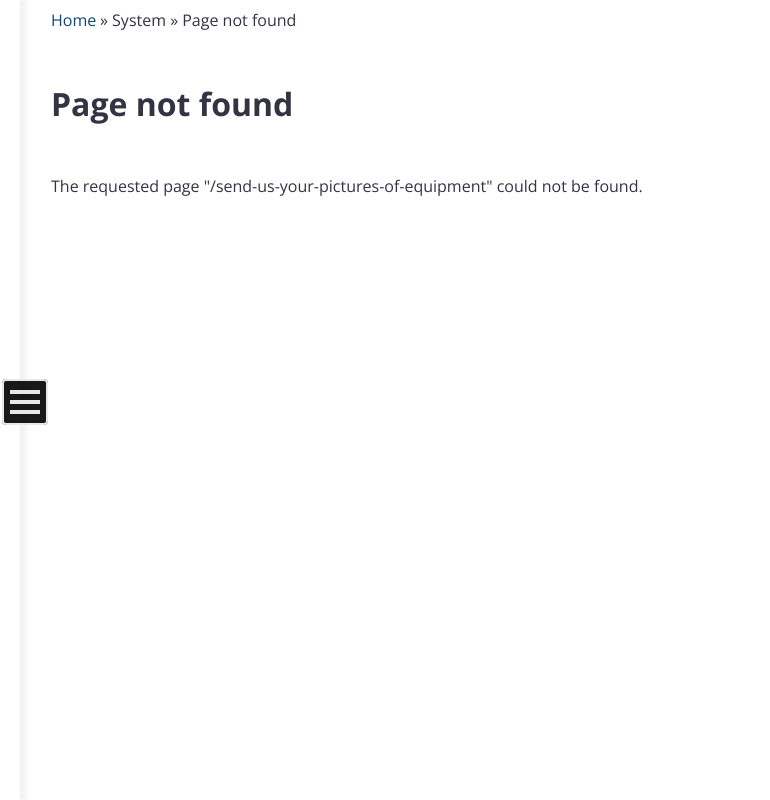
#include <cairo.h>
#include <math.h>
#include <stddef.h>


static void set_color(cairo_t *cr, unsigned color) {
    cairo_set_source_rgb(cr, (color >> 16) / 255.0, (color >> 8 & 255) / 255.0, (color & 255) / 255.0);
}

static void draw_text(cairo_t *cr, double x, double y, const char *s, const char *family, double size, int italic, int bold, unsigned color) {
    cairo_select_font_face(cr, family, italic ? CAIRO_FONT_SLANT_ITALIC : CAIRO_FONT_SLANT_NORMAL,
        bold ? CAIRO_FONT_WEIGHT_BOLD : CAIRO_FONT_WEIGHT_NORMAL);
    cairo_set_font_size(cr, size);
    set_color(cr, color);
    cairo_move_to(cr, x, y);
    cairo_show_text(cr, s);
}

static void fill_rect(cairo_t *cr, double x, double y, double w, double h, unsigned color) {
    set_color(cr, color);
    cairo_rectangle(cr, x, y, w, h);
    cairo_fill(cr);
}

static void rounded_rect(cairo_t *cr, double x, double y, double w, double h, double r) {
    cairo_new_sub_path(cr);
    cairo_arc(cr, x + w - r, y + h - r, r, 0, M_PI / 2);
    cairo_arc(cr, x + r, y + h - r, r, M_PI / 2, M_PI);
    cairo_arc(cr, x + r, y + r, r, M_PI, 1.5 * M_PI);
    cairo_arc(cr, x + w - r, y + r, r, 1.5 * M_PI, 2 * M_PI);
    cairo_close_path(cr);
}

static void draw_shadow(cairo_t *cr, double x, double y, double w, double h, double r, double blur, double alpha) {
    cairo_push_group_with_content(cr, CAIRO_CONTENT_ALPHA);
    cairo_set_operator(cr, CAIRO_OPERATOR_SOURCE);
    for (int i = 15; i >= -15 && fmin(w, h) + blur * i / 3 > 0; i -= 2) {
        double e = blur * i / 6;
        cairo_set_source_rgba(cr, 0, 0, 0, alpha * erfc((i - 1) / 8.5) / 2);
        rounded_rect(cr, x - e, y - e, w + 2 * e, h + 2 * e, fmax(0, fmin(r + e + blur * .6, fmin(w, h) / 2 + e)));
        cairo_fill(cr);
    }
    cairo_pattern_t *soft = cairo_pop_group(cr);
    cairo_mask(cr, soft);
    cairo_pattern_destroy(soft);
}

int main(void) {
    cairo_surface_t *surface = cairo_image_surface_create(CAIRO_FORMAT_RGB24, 770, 800);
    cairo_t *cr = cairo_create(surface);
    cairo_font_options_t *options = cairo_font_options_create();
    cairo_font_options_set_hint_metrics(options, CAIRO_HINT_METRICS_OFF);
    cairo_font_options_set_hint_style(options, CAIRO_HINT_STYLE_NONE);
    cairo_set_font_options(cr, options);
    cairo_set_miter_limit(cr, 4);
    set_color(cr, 0xFFFFFF);
    cairo_paint(cr);
    cairo_save(cr);
    cairo_rectangle(cr, 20, 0, 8, 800);
    cairo_clip(cr);
    set_color(cr, 0x000000);
    draw_shadow(cr, -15, 0, 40, 800, 0, 5, 0.07);
    cairo_restore(cr);
    cairo_set_source_rgba(cr, 0, 0, 0, 0.9);
    rounded_rect(cr, 2, 379, 46, 46, 4);
    cairo_fill(cr);
    rounded_rect(cr, 3, 380, 44, 44, 3);
    cairo_set_source_rgba(cr, 1, 1, 1, 0.9);
    cairo_stroke(cr);
    fill_rect(cr, 10, 390, 30, 4, 0xE8E8E8);
    fill_rect(cr, 10, 400, 30, 4, 0xE8E8E8);
    fill_rect(cr, 10, 410, 30, 4, 0xE8E8E8);
    draw_text(cr, 51, 26, "Home", "Open Sans", 16, 0, 0, 0x114679);
    draw_text(cr, 100, 26, "» System » Page not found", "Open Sans", 16, 0, 0, 0x333344);
    draw_text(cr, 51, 116, "Page not found", "Open Sans", 32, 0, 1, 0x333344);
    draw_text(cr, 51, 192, "The requested page \"/send-us-your-pictures-of-equipment\" could not be found.", "Open Sans", 16, 0, 0, 0x333344);
    cairo_surface_write_to_png(surface, "output.png");
    cairo_font_options_destroy(options);
    cairo_destroy(cr);
    cairo_surface_destroy(surface);
    return 0;
}
